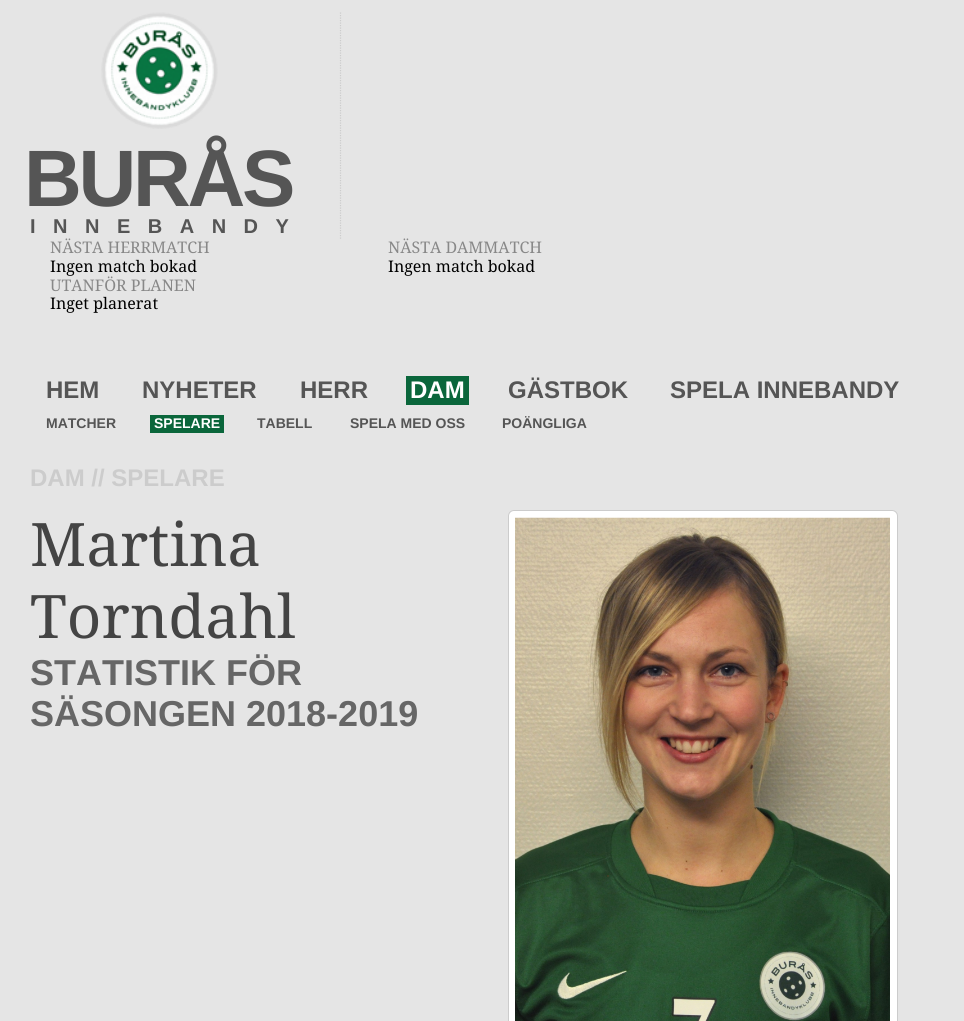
#include <cairo.h>
#include <math.h>
#include <stddef.h>


static void set_color(cairo_t *cr, unsigned color) {
    cairo_set_source_rgb(cr, (color >> 16) / 255.0, (color >> 8 & 255) / 255.0, (color & 255) / 255.0);
}

static void draw_text(cairo_t *cr, double x, double y, const char *s, const char *family, double size, int italic, int bold, unsigned color) {
    cairo_select_font_face(cr, family, italic ? CAIRO_FONT_SLANT_ITALIC : CAIRO_FONT_SLANT_NORMAL,
        bold ? CAIRO_FONT_WEIGHT_BOLD : CAIRO_FONT_WEIGHT_NORMAL);
    cairo_set_font_size(cr, size);
    set_color(cr, color);
    cairo_move_to(cr, x, y);
    cairo_show_text(cr, s);
}

static void draw_spaced(cairo_t *cr, double x, double y, const char *s, double letter, double word) {
    cairo_move_to(cr, x, y);
    while (*s) {
        char ch[5] = {0};
        int n = 0;
        do ch[n++] = *s++; while ((*s & 0xC0) == 0x80);
        cairo_show_text(cr, ch);
        cairo_rel_move_to(cr, letter + word * (*ch == ' '), 0);
    }
}

static void fill_rect(cairo_t *cr, double x, double y, double w, double h, unsigned color) {
    set_color(cr, color);
    cairo_rectangle(cr, x, y, w, h);
    cairo_fill(cr);
}

static void rounded_rect(cairo_t *cr, double x, double y, double w, double h, double r) {
    cairo_new_sub_path(cr);
    cairo_arc(cr, x + w - r, y + h - r, r, 0, M_PI / 2);
    cairo_arc(cr, x + r, y + h - r, r, M_PI / 2, M_PI);
    cairo_arc(cr, x + r, y + r, r, M_PI, 1.5 * M_PI);
    cairo_arc(cr, x + w - r, y + r, r, 1.5 * M_PI, 2 * M_PI);
    cairo_close_path(cr);
}

static void draw_image(cairo_t *cr, const char *path, double x, double y, double w, double h) {
    cairo_surface_t *image = cairo_image_surface_create_from_png(path);
    cairo_save(cr);
    cairo_set_source_surface(cr, image, x, y);
    cairo_rectangle(cr, x, y, w, h);
    cairo_fill(cr);
    cairo_restore(cr);
    cairo_surface_destroy(image);
}

int main(void) {
    cairo_surface_t *surface = cairo_image_surface_create(CAIRO_FORMAT_RGB24, 964, 1021);
    cairo_t *cr = cairo_create(surface);
    cairo_font_options_t *options = cairo_font_options_create();
    cairo_font_options_set_hint_metrics(options, CAIRO_HINT_METRICS_OFF);
    cairo_font_options_set_hint_style(options, CAIRO_HINT_STYLE_NONE);
    cairo_set_font_options(cr, options);
    cairo_set_miter_limit(cr, 4);
    set_color(cr, 0xE5E5E5);
    cairo_paint(cr);
    cairo_new_path(cr);
    cairo_move_to(cr, 340.5, 12.5);
    cairo_line_to(cr, 340.5, 239);
    set_color(cr, 0xCCCCCC);
    cairo_set_line_width(cr, 1.2);
    cairo_set_dash(cr, (double[]){1.25, 1.25}, 2, 0);
    cairo_stroke(cr);
    draw_image(cr, "assets/img1.png", 101, 12, 117, 117);
    cairo_select_font_face(cr, "Arimo", CAIRO_FONT_SLANT_NORMAL, CAIRO_FONT_WEIGHT_BOLD);
    cairo_set_font_size(cr, 80);
    set_color(cr, 0x555555);
    draw_spaced(cr, 24, 206, "BURÅS", -3.25, 0);
    cairo_set_font_size(cr, 20);
    draw_spaced(cr, 30, 233, "INNEBANDY", 17.5, 0);
    draw_text(cr, 50, 253, "NÄSTA HERRMATCH", "Droid Serif", 16, 0, 0, 0x888888);
    draw_text(cr, 50, 272, "Ingen match bokad", "Droid Serif", 16, 0, 0, 0x000000);
    draw_text(cr, 388, 253, "NÄSTA DAMMATCH", "Droid Serif", 16, 0, 0, 0x888888);
    draw_text(cr, 388, 272, "Ingen match bokad", "Droid Serif", 16, 0, 0, 0x000000);
    draw_text(cr, 50, 291, "UTANFÖR PLANEN", "Droid Serif", 16, 0, 0, 0x888888);
    draw_text(cr, 50, 309, "Inget planerat", "Droid Serif", 16, 0, 0, 0x000000);
    draw_text(cr, 46, 398, "HEM", "Arimo", 24, 0, 1, 0x555555);
    draw_text(cr, 142, 398, "NYHETER", "Arimo", 24, 0, 1, 0x555555);
    draw_text(cr, 300, 398, "HERR", "Arimo", 24, 0, 1, 0x555555);
    fill_rect(cr, 406, 376, 63, 29, 0x0A663B);
    draw_text(cr, 410, 398, "DAM", "Arimo", 24, 0, 1, 0xFFFFFF);
    draw_text(cr, 508, 398, "GÄSTBOK", "Arimo", 24, 0, 1, 0x555555);
    draw_text(cr, 670, 398, "SPELA INNEBANDY", "Arimo", 24, 0, 1, 0x555555);
    draw_text(cr, 46, 428, "MATCHER", "Arimo", 14, 0, 1, 0x555555);
    fill_rect(cr, 150, 415, 74, 18, 0x0A663B);
    draw_text(cr, 154, 428, "SPELARE", "Arimo", 14, 0, 1, 0xFFFFFF);
    draw_text(cr, 257, 428, "TABELL", "Arimo", 14, 0, 1, 0x555555);
    draw_text(cr, 350, 428, "SPELA MED OSS", "Arimo", 14, 0, 1, 0x555555);
    draw_text(cr, 502, 428, "POÄNGLIGA", "Arimo", 14, 0, 1, 0x555555);
    draw_text(cr, 30, 486, "DAM // SPELARE", "Arimo", 24, 0, 1, 0xCCCCCC);
    draw_text(cr, 30, 566, "Martina", "Droid Serif", 60, 0, 0, 0x444444);
    draw_text(cr, 30, 638, "Torndahl", "Droid Serif", 60, 0, 0, 0x444444);
    set_color(cr, 0xFFFFFF);
    rounded_rect(cr, 508.5, 510.5, 389, 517, 5.5);
    cairo_fill_preserve(cr);
    set_color(cr, 0xCCCCCC);
    cairo_set_line_width(cr, 1);
    cairo_set_dash(cr, NULL, 0, 0);
    cairo_stroke(cr);
    draw_image(cr, "assets/img2.png", 515, 517, 375, 504);
    draw_text(cr, 30, 685, "STATISTIK FÖR", "Arimo", 36, 0, 1, 0x666666);
    draw_text(cr, 30, 726, "SÄSONGEN 2018-2019", "Arimo", 36, 0, 1, 0x666666);
    cairo_surface_write_to_png(surface, "output.png");
    cairo_font_options_destroy(options);
    cairo_destroy(cr);
    cairo_surface_destroy(surface);
    return 0;
}
